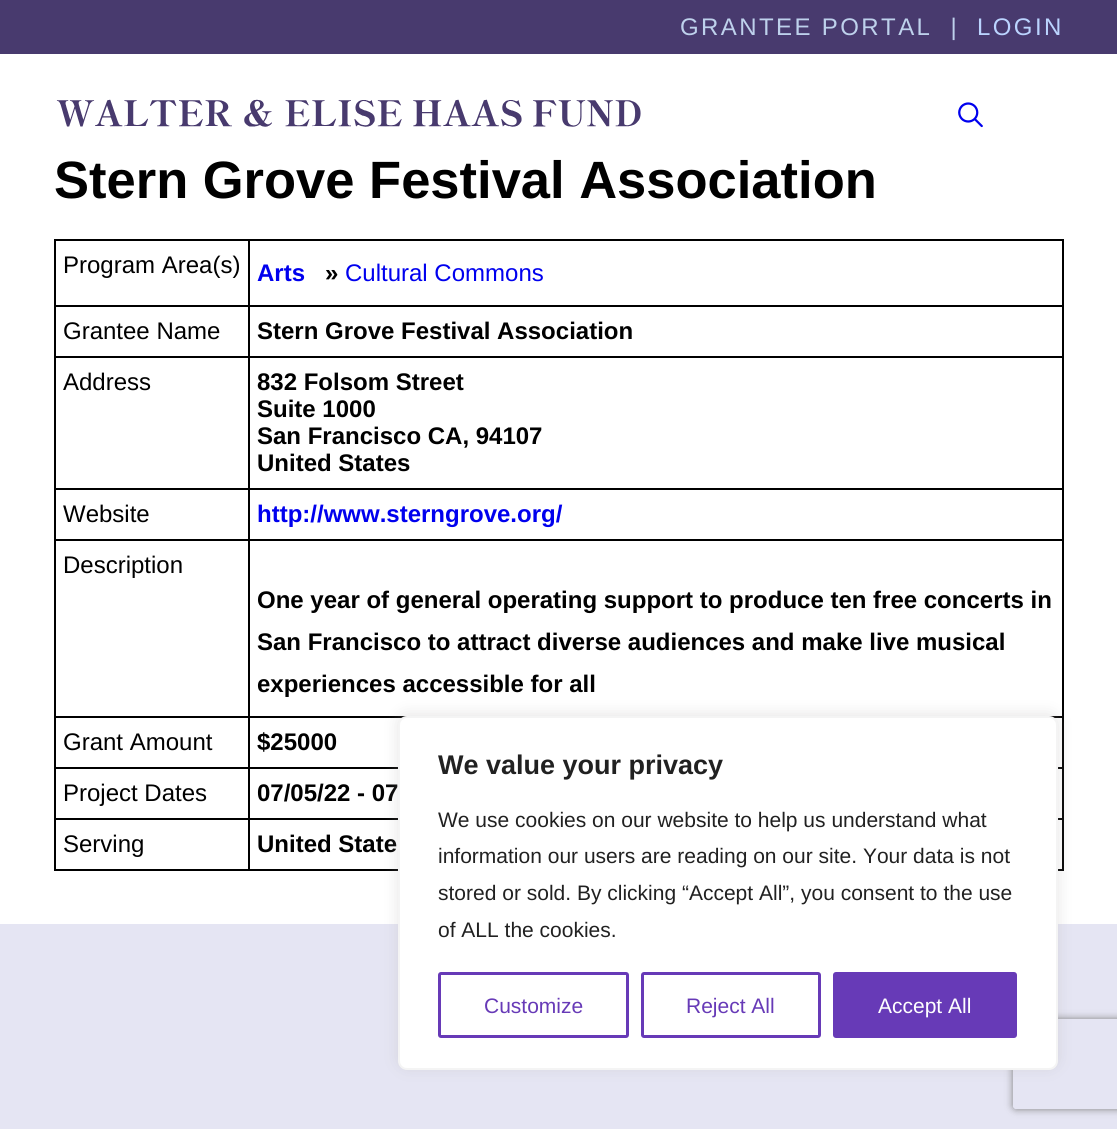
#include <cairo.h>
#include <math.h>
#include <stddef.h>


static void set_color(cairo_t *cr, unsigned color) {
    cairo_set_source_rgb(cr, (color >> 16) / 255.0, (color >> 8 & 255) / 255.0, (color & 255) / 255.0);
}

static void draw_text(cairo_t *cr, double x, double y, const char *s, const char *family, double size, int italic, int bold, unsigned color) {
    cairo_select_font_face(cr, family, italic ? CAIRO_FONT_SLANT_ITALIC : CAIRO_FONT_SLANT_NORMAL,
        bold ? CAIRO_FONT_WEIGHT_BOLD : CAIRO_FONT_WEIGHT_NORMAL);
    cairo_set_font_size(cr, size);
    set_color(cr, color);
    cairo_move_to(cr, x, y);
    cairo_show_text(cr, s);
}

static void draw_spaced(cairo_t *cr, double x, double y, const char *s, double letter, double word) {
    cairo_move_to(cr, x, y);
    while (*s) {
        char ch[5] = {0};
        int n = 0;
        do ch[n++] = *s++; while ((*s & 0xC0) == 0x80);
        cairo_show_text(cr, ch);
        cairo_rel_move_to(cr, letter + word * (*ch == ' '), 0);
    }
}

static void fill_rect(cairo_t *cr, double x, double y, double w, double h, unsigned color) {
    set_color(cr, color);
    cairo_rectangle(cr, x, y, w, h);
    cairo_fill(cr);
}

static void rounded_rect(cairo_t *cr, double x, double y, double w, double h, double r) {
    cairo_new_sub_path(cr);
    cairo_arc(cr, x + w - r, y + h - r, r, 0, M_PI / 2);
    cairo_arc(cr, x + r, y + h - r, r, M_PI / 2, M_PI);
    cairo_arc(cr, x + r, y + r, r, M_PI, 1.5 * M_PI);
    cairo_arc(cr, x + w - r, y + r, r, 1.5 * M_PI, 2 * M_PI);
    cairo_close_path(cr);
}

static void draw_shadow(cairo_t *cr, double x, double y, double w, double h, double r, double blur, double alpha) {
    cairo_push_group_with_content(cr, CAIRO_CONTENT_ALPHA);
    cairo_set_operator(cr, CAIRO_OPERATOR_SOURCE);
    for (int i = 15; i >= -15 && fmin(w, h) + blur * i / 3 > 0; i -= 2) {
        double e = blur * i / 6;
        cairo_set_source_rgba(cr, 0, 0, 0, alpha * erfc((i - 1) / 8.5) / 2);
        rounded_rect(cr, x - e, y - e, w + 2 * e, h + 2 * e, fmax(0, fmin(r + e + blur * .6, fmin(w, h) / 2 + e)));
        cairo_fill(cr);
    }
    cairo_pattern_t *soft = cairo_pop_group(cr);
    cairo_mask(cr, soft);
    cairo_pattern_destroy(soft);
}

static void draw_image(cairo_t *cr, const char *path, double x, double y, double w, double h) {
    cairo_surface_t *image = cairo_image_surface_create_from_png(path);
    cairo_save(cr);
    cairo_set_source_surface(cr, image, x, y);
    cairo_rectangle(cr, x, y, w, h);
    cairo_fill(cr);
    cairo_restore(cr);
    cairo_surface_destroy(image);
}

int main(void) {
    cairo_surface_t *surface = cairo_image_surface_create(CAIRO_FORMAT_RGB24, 1117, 1129);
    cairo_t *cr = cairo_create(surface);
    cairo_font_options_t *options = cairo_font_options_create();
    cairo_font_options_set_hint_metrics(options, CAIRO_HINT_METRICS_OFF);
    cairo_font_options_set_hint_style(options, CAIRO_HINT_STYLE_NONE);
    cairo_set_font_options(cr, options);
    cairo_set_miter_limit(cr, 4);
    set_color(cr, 0xFFFFFF);
    cairo_paint(cr);
    fill_rect(cr, 0, 0, 1117, 54, 0x483A6E);
    cairo_select_font_face(cr, "Liberation Sans", CAIRO_FONT_SLANT_NORMAL, CAIRO_FONT_WEIGHT_NORMAL);
    cairo_set_font_size(cr, 24);
    set_color(cr, 0xBED1EC);
    draw_spaced(cr, 680, 35, "GRANTEE PORTAL  |", 2.4, 0);
    set_color(cr, 0xBBD4FF);
    draw_spaced(cr, 977, 35, "LOGIN", 2.4, 0);
    draw_image(cr, "assets/img1.png", 56, 99, 585, 28);
    draw_image(cr, "assets/img2.png", 958, 102, 25, 26);
    draw_text(cr, 54, 198, "Stern Grove Festival Association", "Liberation Sans", 52.5, 0, 1, 0x000000);
    fill_rect(cr, 54, 239, 1010, 2, 0x000000);
    fill_rect(cr, 1062, 239, 2, 631, 0x000000);
    fill_rect(cr, 54, 869, 1010, 2, 0x000000);
    fill_rect(cr, 54, 239, 2, 631, 0x000000);
    fill_rect(cr, 248, 818, 2, 52, 0x000000);
    fill_rect(cr, 248, 818, 816, 2, 0x000000);
    fill_rect(cr, 248, 767, 2, 52, 0x000000);
    fill_rect(cr, 248, 767, 816, 2, 0x000000);
    fill_rect(cr, 248, 716, 2, 52, 0x000000);
    fill_rect(cr, 248, 716, 816, 2, 0x000000);
    fill_rect(cr, 248, 539, 2, 178, 0x000000);
    fill_rect(cr, 248, 539, 816, 2, 0x000000);
    fill_rect(cr, 248, 488, 2, 52, 0x000000);
    fill_rect(cr, 248, 488, 816, 2, 0x000000);
    fill_rect(cr, 248, 356, 2, 133, 0x000000);
    fill_rect(cr, 248, 356, 816, 2, 0x000000);
    fill_rect(cr, 248, 305, 2, 52, 0x000000);
    fill_rect(cr, 248, 305, 816, 2, 0x000000);
    fill_rect(cr, 248, 239, 2, 67, 0x000000);
    fill_rect(cr, 54, 305, 195, 2, 0x000000);
    draw_text(cr, 63, 273, "Program Area(s)", "Liberation Sans", 24, 0, 0, 0x000000);
    draw_text(cr, 257, 281, "Arts", "Liberation Sans", 24, 0, 1, 0x0000EE);
    draw_text(cr, 325, 281, "»", "Liberation Sans", 24, 0, 1, 0x000000);
    draw_text(cr, 345, 281, "Cultural Commons", "Liberation Sans", 24, 0, 0, 0x0000EE);
    fill_rect(cr, 54, 356, 195, 2, 0x000000);
    draw_text(cr, 63, 339, "Grantee Name", "Liberation Sans", 24, 0, 0, 0x000000);
    draw_text(cr, 257, 339, "Stern Grove Festival Association", "Liberation Sans", 24, 0, 1, 0x000000);
    fill_rect(cr, 54, 488, 195, 2, 0x000000);
    draw_text(cr, 63, 390, "Address", "Liberation Sans", 24, 0, 0, 0x000000);
    draw_text(cr, 257, 390, "832 Folsom Street", "Liberation Sans", 24, 0, 1, 0x000000);
    draw_text(cr, 257, 417, "Suite 1000", "Liberation Sans", 24, 0, 1, 0x000000);
    draw_text(cr, 257, 444, "San Francisco CA, 94107", "Liberation Sans", 24, 0, 1, 0x000000);
    draw_text(cr, 257, 471, "United States", "Liberation Sans", 24, 0, 1, 0x000000);
    fill_rect(cr, 54, 539, 195, 2, 0x000000);
    draw_text(cr, 63, 522, "Website", "Liberation Sans", 24, 0, 0, 0x000000);
    draw_text(cr, 257, 522, "http://www.sterngrove.org/", "Liberation Sans", 24, 0, 1, 0x0000EE);
    fill_rect(cr, 54, 716, 195, 2, 0x000000);
    draw_text(cr, 63, 573, "Description", "Liberation Sans", 24, 0, 0, 0x000000);
    draw_text(cr, 257, 608, "One year of general operating support to produce ten free concerts in", "Liberation Sans", 24, 0, 1, 0x000000);
    draw_text(cr, 257, 650, "San Francisco to attract diverse audiences and make live musical", "Liberation Sans", 24, 0, 1, 0x000000);
    draw_text(cr, 257, 692, "experiences accessible for all", "Liberation Sans", 24, 0, 1, 0x000000);
    fill_rect(cr, 54, 767, 195, 2, 0x000000);
    draw_text(cr, 63, 750, "Grant Amount", "Liberation Sans", 24, 0, 0, 0x000000);
    draw_text(cr, 257, 750, "$25000", "Liberation Sans", 24, 0, 1, 0x000000);
    fill_rect(cr, 54, 818, 195, 2, 0x000000);
    draw_text(cr, 63, 801, "Project Dates", "Liberation Sans", 24, 0, 0, 0x000000);
    draw_text(cr, 257, 801, "07/05/22 - 07", "Liberation Sans", 24, 0, 1, 0x000000);
    draw_text(cr, 63, 852, "Serving", "Liberation Sans", 24, 0, 0, 0x000000);
    draw_text(cr, 257, 852, "United State", "Liberation Sans", 24, 0, 1, 0x000000);
    fill_rect(cr, 0, 924, 1117, 205, 0xE5E5F3);
    set_color(cr, 0xACABAB);
    draw_shadow(cr, 398, 714, 660, 354, 9, 7.5, 0.3);
    cairo_save(cr);
    cairo_set_fill_rule(cr, CAIRO_FILL_RULE_EVEN_ODD);
    cairo_new_path(cr);
    cairo_move_to(cr, 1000, 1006);
    cairo_line_to(cr, 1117, 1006);
    cairo_line_to(cr, 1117, 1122);
    cairo_line_to(cr, 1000, 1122);
    cairo_close_path(cr);
    cairo_move_to(cr, 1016, 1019);
    cairo_line_to(cr, 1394, 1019);
    cairo_curve_to(cr, 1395.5, 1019, 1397, 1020.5, 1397, 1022);
    cairo_line_to(cr, 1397, 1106);
    cairo_curve_to(cr, 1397, 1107.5, 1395.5, 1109, 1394, 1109);
    cairo_line_to(cr, 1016, 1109);
    cairo_curve_to(cr, 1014.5, 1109, 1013, 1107.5, 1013, 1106);
    cairo_line_to(cr, 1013, 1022);
    cairo_curve_to(cr, 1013, 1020.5, 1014.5, 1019, 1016, 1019);
    cairo_close_path(cr);
    cairo_clip(cr);
    set_color(cr, 0x808080);
    draw_shadow(cr, 1013, 1019, 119, 90, 3, 4, 1);
    cairo_restore(cr);
    set_color(cr, 0xFFFFFF);
    rounded_rect(cr, 399, 717, 658, 352, 8);
    cairo_fill_preserve(cr);
    set_color(cr, 0xF4F4F4);
    cairo_stroke(cr);
    draw_text(cr, 438, 774, "We value your privacy", "Liberation Sans", 27, 0, 1, 0x212121);
    draw_text(cr, 438, 827, "We use cookies on our website to help us understand what", "Liberation Sans", 21, 0, 0, 0x212121);
    draw_text(cr, 438, 863, "information our users are reading on our site. Your data is not", "Liberation Sans", 21, 0, 0, 0x212121);
    draw_text(cr, 438, 900, "stored or sold. By clicking “Accept All”, you consent to the use", "Liberation Sans", 21, 0, 0, 0x212121);
    draw_text(cr, 438, 937, "of ALL the cookies.", "Liberation Sans", 21, 0, 0, 0x212121);
    rounded_rect(cr, 439.5, 973.5, 188, 63, 1.5);
    set_color(cr, 0x673AB7);
    cairo_set_line_width(cr, 3);
    cairo_stroke(cr);
    draw_text(cr, 484, 1013, "Customize", "Liberation Sans", 21, 0, 0, 0x673AB7);
    rounded_rect(cr, 642.5, 973.5, 177, 63, 1.5);
    cairo_stroke(cr);
    draw_text(cr, 686, 1013, "Reject All", "Liberation Sans", 21, 0, 0, 0x673AB7);
    rounded_rect(cr, 834.5, 973.5, 181, 63, 1.5);
    cairo_fill_preserve(cr);
    cairo_stroke(cr);
    draw_text(cr, 878, 1013, "Accept All", "Liberation Sans", 21, 0, 0, 0xFFFFFF);
    cairo_surface_write_to_png(surface, "output.png");
    cairo_font_options_destroy(options);
    cairo_destroy(cr);
    cairo_surface_destroy(surface);
    return 0;
}
